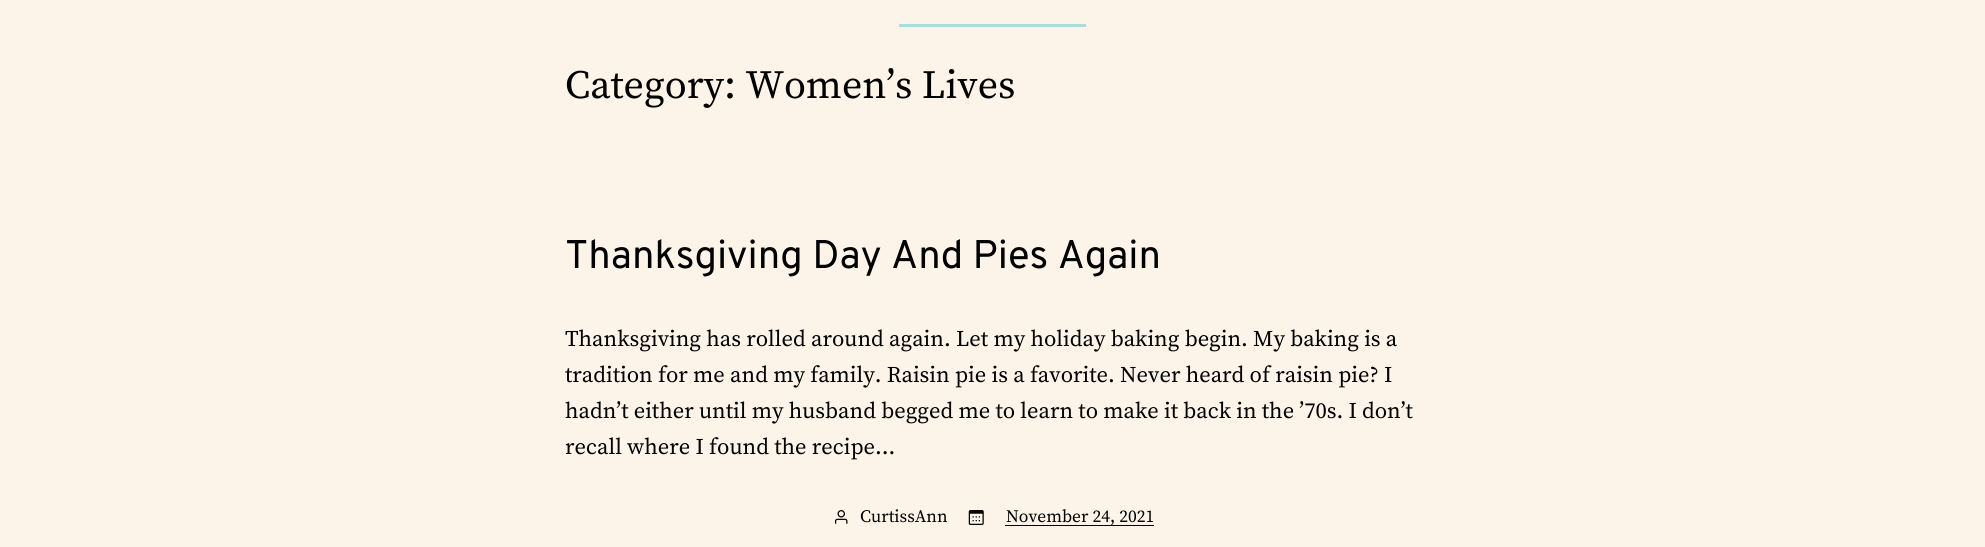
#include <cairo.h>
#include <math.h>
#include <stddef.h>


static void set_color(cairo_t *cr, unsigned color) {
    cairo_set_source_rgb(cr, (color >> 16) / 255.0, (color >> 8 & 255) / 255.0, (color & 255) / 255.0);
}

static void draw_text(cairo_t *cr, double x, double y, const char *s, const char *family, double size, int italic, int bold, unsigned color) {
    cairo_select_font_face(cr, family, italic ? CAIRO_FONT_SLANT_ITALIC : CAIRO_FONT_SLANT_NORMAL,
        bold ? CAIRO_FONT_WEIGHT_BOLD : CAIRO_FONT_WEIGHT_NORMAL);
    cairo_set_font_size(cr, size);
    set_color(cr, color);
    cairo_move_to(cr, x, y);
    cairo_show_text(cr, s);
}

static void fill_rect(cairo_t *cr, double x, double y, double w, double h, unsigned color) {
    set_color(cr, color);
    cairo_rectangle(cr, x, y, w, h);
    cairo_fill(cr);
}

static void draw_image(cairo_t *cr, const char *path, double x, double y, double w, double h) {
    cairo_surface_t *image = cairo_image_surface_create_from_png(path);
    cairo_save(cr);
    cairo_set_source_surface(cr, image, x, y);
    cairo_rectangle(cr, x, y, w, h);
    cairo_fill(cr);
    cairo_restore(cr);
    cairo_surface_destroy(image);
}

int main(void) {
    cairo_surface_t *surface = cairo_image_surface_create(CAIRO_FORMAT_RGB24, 1985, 547);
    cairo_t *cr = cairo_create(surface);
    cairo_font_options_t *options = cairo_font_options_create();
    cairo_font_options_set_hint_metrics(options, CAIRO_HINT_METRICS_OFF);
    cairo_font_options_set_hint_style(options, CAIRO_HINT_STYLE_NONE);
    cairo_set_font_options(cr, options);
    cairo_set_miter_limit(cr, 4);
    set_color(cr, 0xFCF4E9);
    cairo_paint(cr);
    fill_rect(cr, 899, 24, 187, 3, 0xA4E1DA);
    draw_text(cr, 565, 98, "Category: Women’s Lives", "Source Serif Pro", 40, 0, 0, 0x000000);
    draw_text(cr, 565, 268, "Thanksgiving Day And Pies Again", "Overpass", 40, 0, 0, 0x000000);
    draw_text(cr, 565, 346, "Thanksgiving has rolled around again. Let my holiday baking begin. My baking is a", "Source Serif Pro", 22.5, 0, 0, 0x000000);
    draw_text(cr, 565, 382, "tradition for me and my family. Raisin pie is a favorite. Never heard of raisin pie? I", "Source Serif Pro", 22.5, 0, 0, 0x000000);
    draw_text(cr, 565, 418, "hadn’t either until my husband begged me to learn to make it back in the ’70s. I don’t", "Source Serif Pro", 22.5, 0, 0, 0x000000);
    draw_text(cr, 565, 454, "recall where I found the recipe…", "Source Serif Pro", 22.5, 0, 0, 0x000000);
    draw_image(cr, "assets/img1.png", 835, 510, 13, 14);
    draw_text(cr, 860, 522, "CurtissAnn", "Source Serif Pro", 17.5, 0, 0, 0x000000);
    draw_image(cr, "assets/img2.png", 968, 510, 16, 15);
    fill_rect(cr, 1005, 525, 149, 1, 0x000000);
    draw_text(cr, 1006, 522, "November 24, 2021", "Source Serif Pro", 17.5, 0, 0, 0x000000);
    cairo_surface_write_to_png(surface, "output.png");
    cairo_font_options_destroy(options);
    cairo_destroy(cr);
    cairo_surface_destroy(surface);
    return 0;
}
